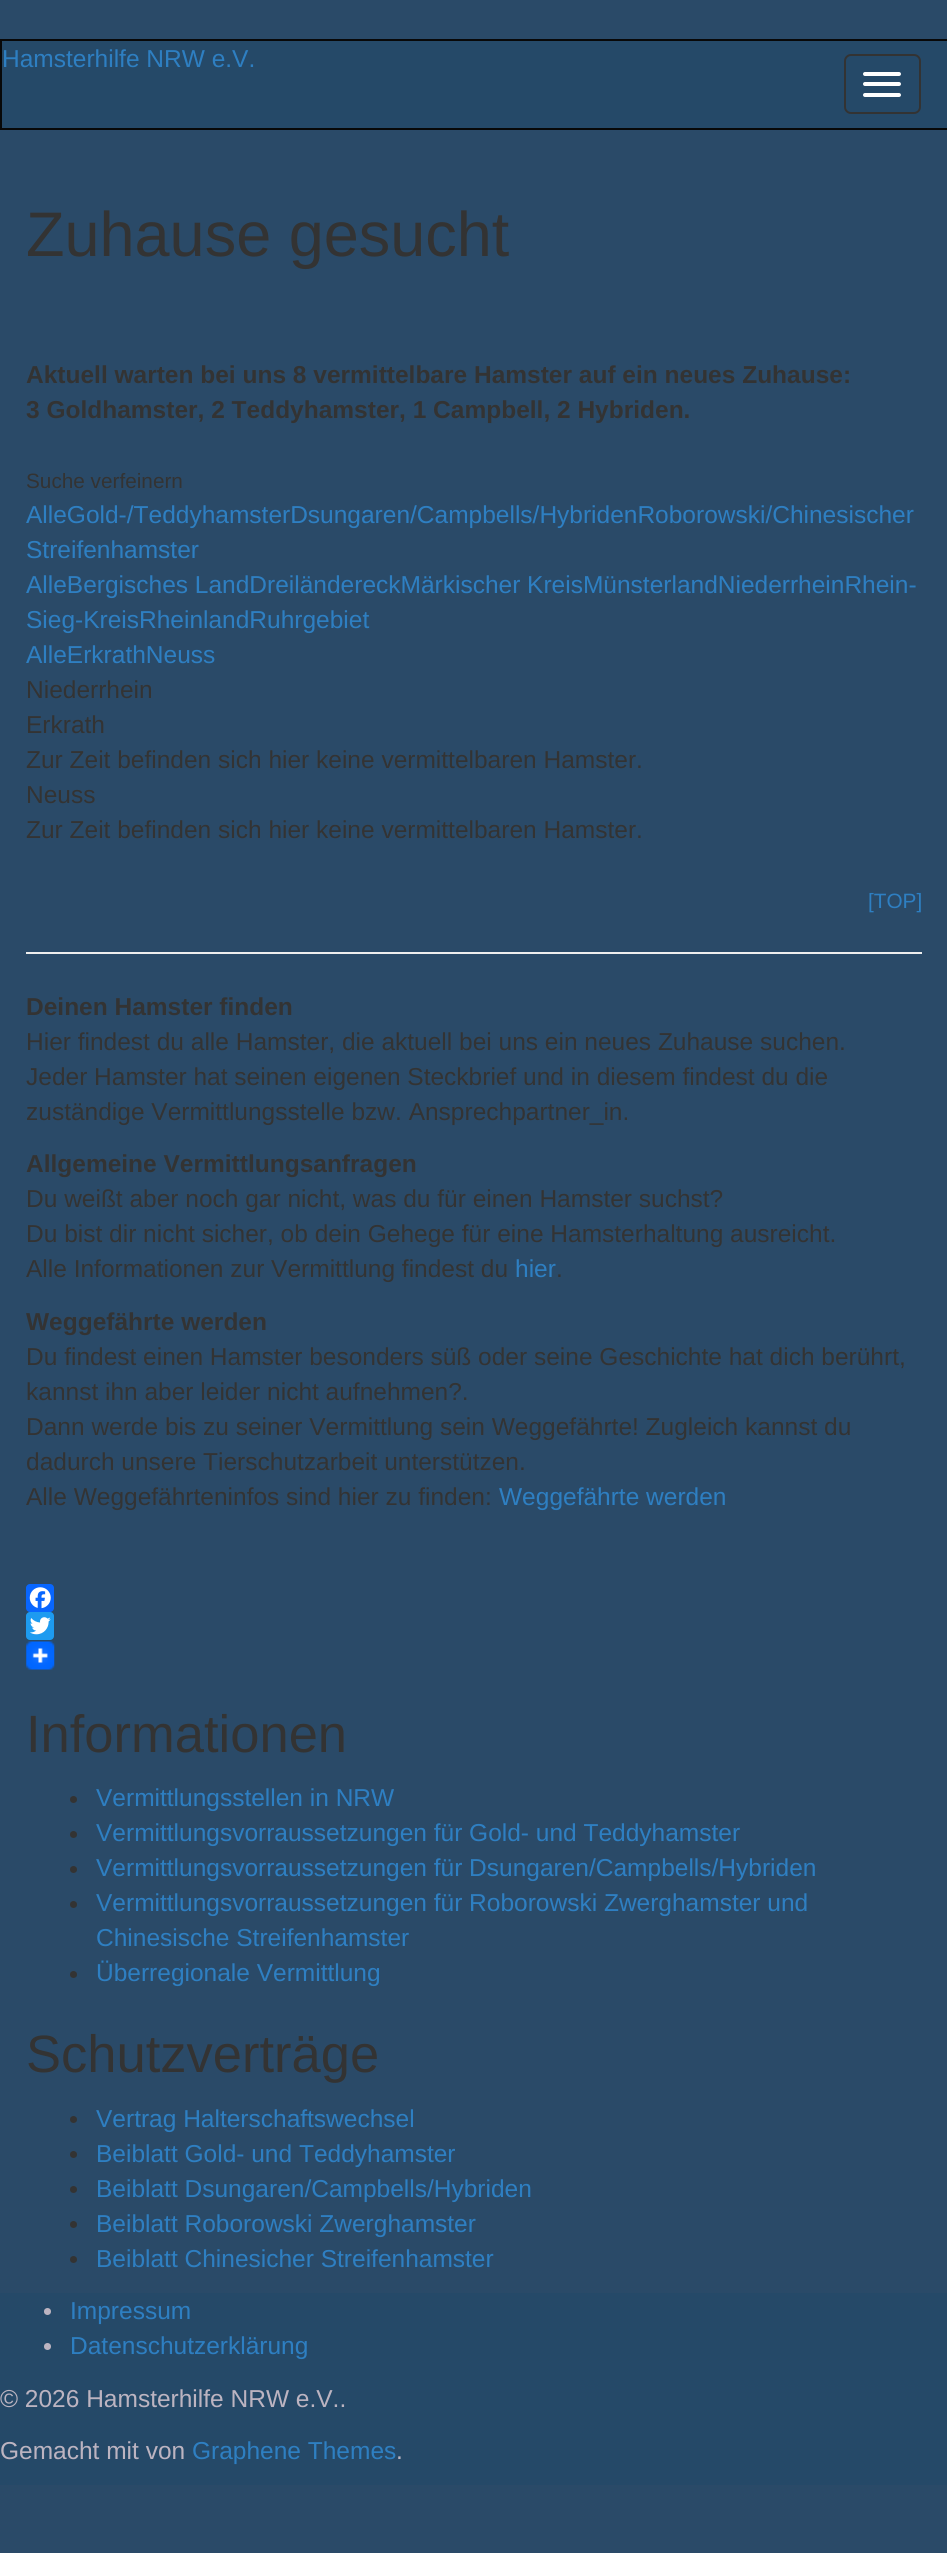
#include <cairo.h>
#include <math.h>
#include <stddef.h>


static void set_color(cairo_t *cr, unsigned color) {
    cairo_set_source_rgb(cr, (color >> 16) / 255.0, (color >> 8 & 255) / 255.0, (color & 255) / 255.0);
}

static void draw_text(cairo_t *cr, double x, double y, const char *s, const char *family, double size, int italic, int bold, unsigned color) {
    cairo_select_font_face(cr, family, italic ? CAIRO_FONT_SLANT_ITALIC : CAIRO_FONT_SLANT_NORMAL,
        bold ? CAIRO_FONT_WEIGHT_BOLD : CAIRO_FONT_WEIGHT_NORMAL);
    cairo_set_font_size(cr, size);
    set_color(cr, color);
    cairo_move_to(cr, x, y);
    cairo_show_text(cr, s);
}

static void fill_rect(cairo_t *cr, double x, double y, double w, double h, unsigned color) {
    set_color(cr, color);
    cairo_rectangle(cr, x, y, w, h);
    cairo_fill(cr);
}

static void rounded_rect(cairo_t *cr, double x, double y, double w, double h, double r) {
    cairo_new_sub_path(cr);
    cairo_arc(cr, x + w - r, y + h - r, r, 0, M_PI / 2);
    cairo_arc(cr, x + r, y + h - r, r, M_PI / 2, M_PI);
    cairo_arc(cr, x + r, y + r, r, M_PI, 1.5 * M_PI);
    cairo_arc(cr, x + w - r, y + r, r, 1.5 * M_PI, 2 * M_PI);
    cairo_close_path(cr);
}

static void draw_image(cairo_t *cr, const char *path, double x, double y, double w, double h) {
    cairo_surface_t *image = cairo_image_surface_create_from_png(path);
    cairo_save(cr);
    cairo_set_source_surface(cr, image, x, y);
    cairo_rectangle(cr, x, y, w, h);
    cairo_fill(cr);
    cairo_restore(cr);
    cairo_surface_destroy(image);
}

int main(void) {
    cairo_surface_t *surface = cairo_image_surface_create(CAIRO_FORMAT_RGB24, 947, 2553);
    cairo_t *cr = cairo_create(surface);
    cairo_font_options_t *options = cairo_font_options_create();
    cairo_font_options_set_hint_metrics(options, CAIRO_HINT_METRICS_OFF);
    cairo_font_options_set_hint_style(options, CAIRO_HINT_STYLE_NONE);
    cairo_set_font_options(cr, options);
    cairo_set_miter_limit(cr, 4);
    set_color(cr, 0x2A4A68);
    cairo_paint(cr);
    set_color(cr, 0x254968);
    cairo_rectangle(cr, 1, 40, 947, 89);
    cairo_fill_preserve(cr);
    set_color(cr, 0x080808);
    cairo_stroke(cr);
    draw_text(cr, 2, 67, "Hamsterhilfe NRW e.V.", "Liberation Sans", 24.5, 0, 0, 0x2E7FC2);
    rounded_rect(cr, 845, 55, 75, 58, 6);
    set_color(cr, 0x333333);
    cairo_stroke(cr);
    set_color(cr, 0xFFFFFF);
    rounded_rect(cr, 863, 72, 38, 4, 2);
    cairo_fill(cr);
    rounded_rect(cr, 863, 82, 38, 4, 2);
    cairo_fill(cr);
    rounded_rect(cr, 863, 93, 38, 4, 2);
    cairo_fill(cr);
    draw_text(cr, 26, 256, "Zuhause gesucht", "Liberation Sans", 63, 0, 0, 0x333333);
    draw_text(cr, 26, 383, "Aktuell warten bei uns 8 vermittelbare Hamster auf ein neues Zuhause:", "Liberation Sans", 24.5, 0, 1, 0x333333);
    draw_text(cr, 26, 418, "3 Goldhamster, 2 Teddyhamster, 1 Campbell, 2 Hybriden.", "Liberation Sans", 24.5, 0, 1, 0x333333);
    draw_text(cr, 26, 488, "Suche verfeinern", "Liberation Sans", 20.75, 0, 0, 0x333333);
    draw_text(cr, 26, 523, "AlleGold-/TeddyhamsterDsungaren/Campbells/HybridenRoborowski/Chinesischer", "Liberation Sans", 24.5, 0, 0, 0x2E7FC2);
    draw_text(cr, 26, 558, "Streifenhamster", "Liberation Sans", 24.5, 0, 0, 0x2E7FC2);
    draw_text(cr, 26, 593, "AlleBergisches LandDreiländereckMärkischer KreisMünsterlandNiederrheinRhein-", "Liberation Sans", 24.5, 0, 0, 0x2E7FC2);
    draw_text(cr, 26, 628, "Sieg-KreisRheinlandRuhrgebiet", "Liberation Sans", 24.5, 0, 0, 0x2E7FC2);
    draw_text(cr, 26, 663, "AlleErkrathNeuss", "Liberation Sans", 24.5, 0, 0, 0x2E7FC2);
    draw_text(cr, 26, 698, "Niederrhein", "Liberation Sans", 24.5, 0, 0, 0x333333);
    draw_text(cr, 26, 733, "Erkrath", "Liberation Sans", 24.5, 0, 0, 0x333333);
    draw_text(cr, 26, 768, "Zur Zeit befinden sich hier keine vermittelbaren Hamster.", "Liberation Sans", 24.5, 0, 0, 0x333333);
    draw_text(cr, 26, 803, "Neuss", "Liberation Sans", 24.5, 0, 0, 0x333333);
    draw_text(cr, 26, 838, "Zur Zeit befinden sich hier keine vermittelbaren Hamster.", "Liberation Sans", 24.5, 0, 0, 0x333333);
    draw_text(cr, 868, 908, "[TOP]", "Liberation Sans", 20.75, 0, 0, 0x2E7FC2);
    fill_rect(cr, 26, 952, 896, 2, 0xEEEEEE);
    draw_text(cr, 26, 1015, "Deinen Hamster finden", "Liberation Sans", 24.5, 0, 1, 0x333333);
    draw_text(cr, 26, 1050, "Hier findest du alle Hamster, die aktuell bei uns ein neues Zuhause suchen.", "Liberation Sans", 24.5, 0, 0, 0x333333);
    draw_text(cr, 26, 1085, "Jeder Hamster hat seinen eigenen Steckbrief und in diesem findest du die", "Liberation Sans", 24.5, 0, 0, 0x333333);
    draw_text(cr, 26, 1120, "zuständige Vermittlungsstelle bzw. Ansprechpartner_in.", "Liberation Sans", 24.5, 0, 0, 0x333333);
    draw_text(cr, 26, 1172, "Allgemeine Vermittlungsanfragen", "Liberation Sans", 24.5, 0, 1, 0x333333);
    draw_text(cr, 26, 1207, "Du weißt aber noch gar nicht, was du für einen Hamster suchst?", "Liberation Sans", 24.5, 0, 0, 0x333333);
    draw_text(cr, 26, 1242, "Du bist dir nicht sicher, ob dein Gehege für eine Hamsterhaltung ausreicht.", "Liberation Sans", 24.5, 0, 0, 0x333333);
    draw_text(cr, 26, 1277, "Alle Informationen zur Vermittlung findest du", "Liberation Sans", 24.5, 0, 0, 0x333333);
    draw_text(cr, 515, 1277, "hier", "Liberation Sans", 24.5, 0, 0, 0x2E7FC2);
    draw_text(cr, 556, 1277, ".", "Liberation Sans", 24.5, 0, 0, 0x333333);
    draw_text(cr, 26, 1330, "Weggefährte werden", "Liberation Sans", 24.5, 0, 1, 0x333333);
    draw_text(cr, 26, 1365, "Du findest einen Hamster besonders süß oder seine Geschichte hat dich berührt,", "Liberation Sans", 24.5, 0, 0, 0x333333);
    draw_text(cr, 26, 1400, "kannst ihn aber leider nicht aufnehmen?.", "Liberation Sans", 24.5, 0, 0, 0x333333);
    draw_text(cr, 26, 1435, "Dann werde bis zu seiner Vermittlung sein Weggefährte! Zugleich kannst du", "Liberation Sans", 24.5, 0, 0, 0x333333);
    draw_text(cr, 26, 1470, "dadurch unsere Tierschutzarbeit unterstützen.", "Liberation Sans", 24.5, 0, 0, 0x333333);
    draw_text(cr, 26, 1505, "Alle Weggefährteninfos sind hier zu finden:", "Liberation Sans", 24.5, 0, 0, 0x333333);
    draw_text(cr, 499, 1505, "Weggefährte werden", "Liberation Sans", 24.5, 0, 0, 0x2E7FC2);
    set_color(cr, 0x0866FF);
    rounded_rect(cr, 26, 1584, 28, 28, 4);
    cairo_fill(cr);
    draw_image(cr, "assets/img1.png", 29, 1587, 22, 22);
    set_color(cr, 0x1D9BF0);
    rounded_rect(cr, 26, 1612, 28, 28, 4);
    cairo_fill(cr);
    draw_image(cr, "assets/img2.png", 30, 1617, 21, 18);
    draw_image(cr, "assets/img3.png", 26, 1641, 29, 29);
    draw_text(cr, 26, 1752, "Informationen", "Liberation Sans", 52.5, 0, 0, 0x333333);
    cairo_new_path(cr);
    cairo_arc(cr, 73.5, 1799.5, 3.5, 0, 2 * M_PI);
    cairo_fill(cr);
    draw_text(cr, 96, 1806, "Vermittlungsstellen in NRW", "Liberation Sans", 24.5, 0, 0, 0x2E7FC2);
    set_color(cr, 0x333333);
    cairo_new_path(cr);
    cairo_arc(cr, 73.5, 1834.5, 3.5, 0, 2 * M_PI);
    cairo_fill(cr);
    draw_text(cr, 96, 1841, "Vermittlungsvorraussetzungen für Gold- und Teddyhamster", "Liberation Sans", 24.5, 0, 0, 0x2E7FC2);
    set_color(cr, 0x333333);
    cairo_new_path(cr);
    cairo_arc(cr, 73.5, 1869.5, 3.5, 0, 2 * M_PI);
    cairo_fill(cr);
    draw_text(cr, 96, 1876, "Vermittlungsvorraussetzungen für Dsungaren/Campbells/Hybriden", "Liberation Sans", 24.5, 0, 0, 0x2E7FC2);
    set_color(cr, 0x333333);
    cairo_new_path(cr);
    cairo_arc(cr, 73.5, 1904.5, 3.5, 0, 2 * M_PI);
    cairo_fill(cr);
    draw_text(cr, 96, 1911, "Vermittlungsvorraussetzungen für Roborowski Zwerghamster und", "Liberation Sans", 24.5, 0, 0, 0x2E7FC2);
    draw_text(cr, 96, 1946, "Chinesische Streifenhamster", "Liberation Sans", 24.5, 0, 0, 0x2E7FC2);
    set_color(cr, 0x333333);
    cairo_new_path(cr);
    cairo_arc(cr, 73.5, 1974.5, 3.5, 0, 2 * M_PI);
    cairo_fill(cr);
    draw_text(cr, 96, 1981, "Überregionale Vermittlung", "Liberation Sans", 24.5, 0, 0, 0x2E7FC2);
    draw_text(cr, 26, 2072, "Schutzverträge", "Liberation Sans", 52.5, 0, 0, 0x333333);
    cairo_new_path(cr);
    cairo_arc(cr, 73.5, 2119.5, 3.5, 0, 2 * M_PI);
    cairo_fill(cr);
    draw_text(cr, 96, 2127, "Vertrag Halterschaftswechsel", "Liberation Sans", 24.5, 0, 0, 0x2E7FC2);
    set_color(cr, 0x333333);
    cairo_new_path(cr);
    cairo_arc(cr, 73.5, 2154.5, 3.5, 0, 2 * M_PI);
    cairo_fill(cr);
    draw_text(cr, 96, 2162, "Beiblatt Gold- und Teddyhamster", "Liberation Sans", 24.5, 0, 0, 0x2E7FC2);
    set_color(cr, 0x333333);
    cairo_new_path(cr);
    cairo_arc(cr, 73.5, 2189.5, 3.5, 0, 2 * M_PI);
    cairo_fill(cr);
    draw_text(cr, 96, 2197, "Beiblatt Dsungaren/Campbells/Hybriden", "Liberation Sans", 24.5, 0, 0, 0x2E7FC2);
    set_color(cr, 0x333333);
    cairo_new_path(cr);
    cairo_arc(cr, 73.5, 2224.5, 3.5, 0, 2 * M_PI);
    cairo_fill(cr);
    draw_text(cr, 96, 2232, "Beiblatt Roborowski Zwerghamster", "Liberation Sans", 24.5, 0, 0, 0x2E7FC2);
    set_color(cr, 0x333333);
    cairo_new_path(cr);
    cairo_arc(cr, 73.5, 2259.5, 3.5, 0, 2 * M_PI);
    cairo_fill(cr);
    draw_text(cr, 96, 2267, "Beiblatt Chinesicher Streifenhamster", "Liberation Sans", 24.5, 0, 0, 0x2E7FC2);
    fill_rect(cr, 0, 2293, 947, 192, 0x254968);
    set_color(cr, 0xBCB4C1);
    cairo_new_path(cr);
    cairo_arc(cr, 47.5, 2311.5, 3.5, 0, 2 * M_PI);
    cairo_fill(cr);
    draw_text(cr, 70, 2319, "Impressum", "Liberation Sans", 24.5, 0, 0, 0x2E7FC2);
    set_color(cr, 0xBCB4C1);
    cairo_new_path(cr);
    cairo_arc(cr, 47.5, 2346.5, 3.5, 0, 2 * M_PI);
    cairo_fill(cr);
    draw_text(cr, 70, 2354, "Datenschutzerklärung", "Liberation Sans", 24.5, 0, 0, 0x2E7FC2);
    draw_text(cr, 0, 2407, "© 2026 Hamsterhilfe NRW e.V..", "Liberation Sans", 24.5, 0, 0, 0xBCB4C1);
    draw_text(cr, 0, 2459, "Gemacht mit von", "Liberation Sans", 24.5, 0, 0, 0xBCB4C1);
    draw_text(cr, 192, 2459, "Graphene Themes", "Liberation Sans", 24.5, 0, 0, 0x2E7FC2);
    draw_text(cr, 396, 2459, ".", "Liberation Sans", 24.5, 0, 0, 0xBCB4C1);
    cairo_surface_write_to_png(surface, "output.png");
    cairo_font_options_destroy(options);
    cairo_destroy(cr);
    cairo_surface_destroy(surface);
    return 0;
}
